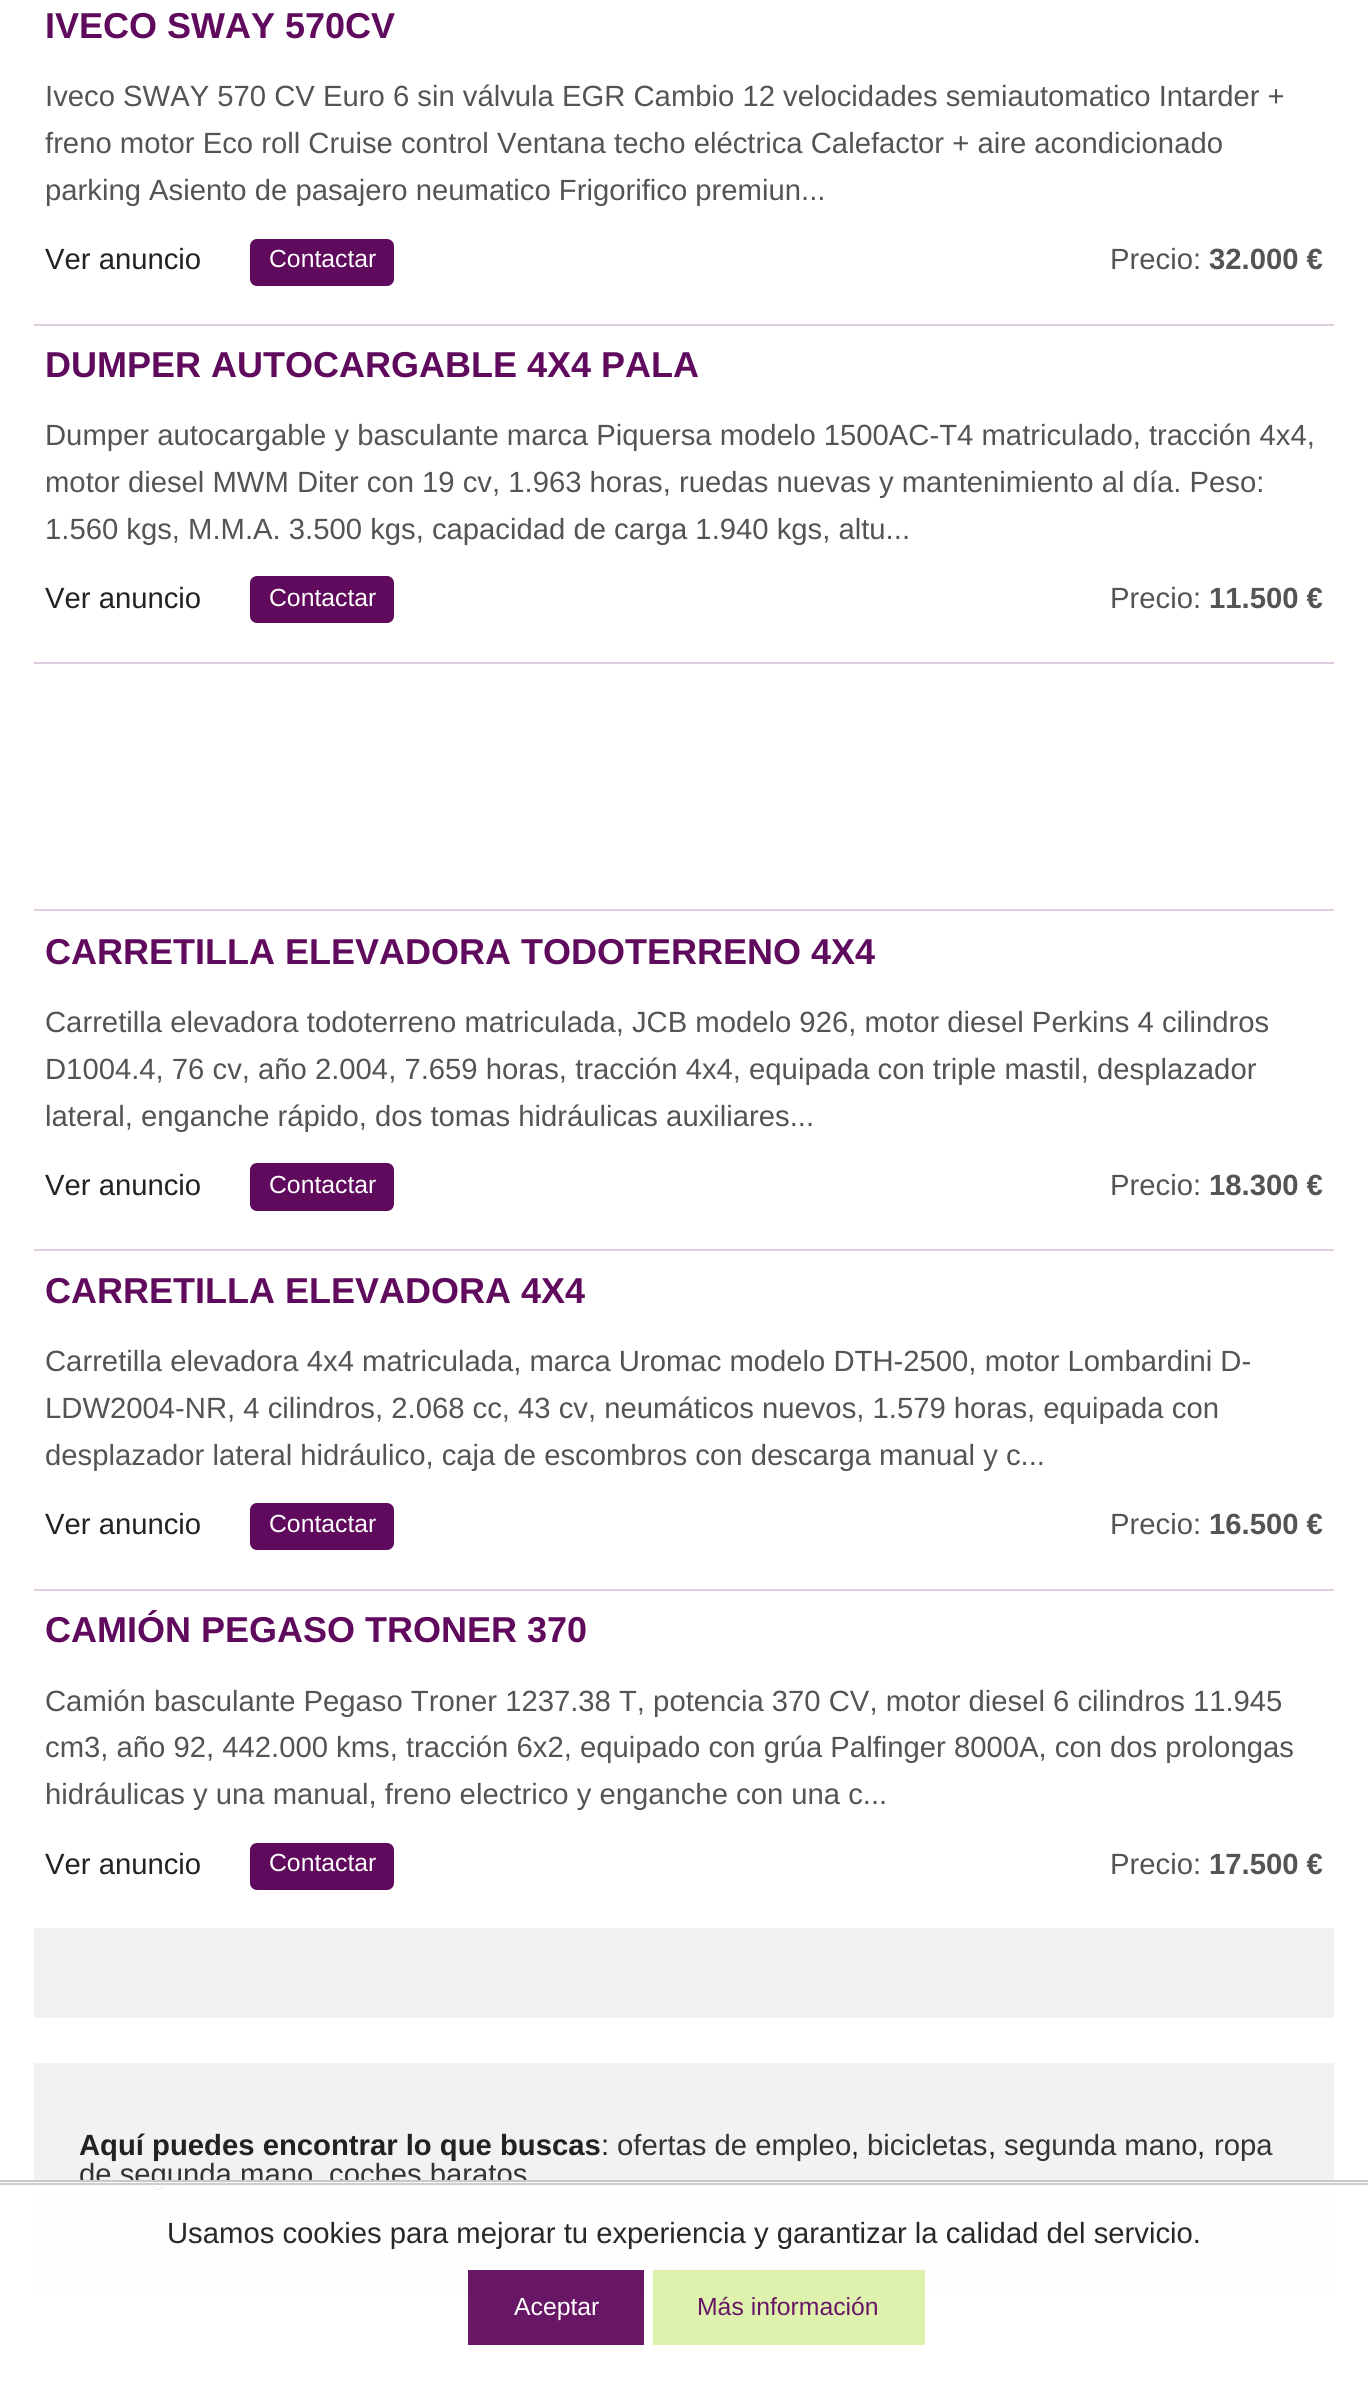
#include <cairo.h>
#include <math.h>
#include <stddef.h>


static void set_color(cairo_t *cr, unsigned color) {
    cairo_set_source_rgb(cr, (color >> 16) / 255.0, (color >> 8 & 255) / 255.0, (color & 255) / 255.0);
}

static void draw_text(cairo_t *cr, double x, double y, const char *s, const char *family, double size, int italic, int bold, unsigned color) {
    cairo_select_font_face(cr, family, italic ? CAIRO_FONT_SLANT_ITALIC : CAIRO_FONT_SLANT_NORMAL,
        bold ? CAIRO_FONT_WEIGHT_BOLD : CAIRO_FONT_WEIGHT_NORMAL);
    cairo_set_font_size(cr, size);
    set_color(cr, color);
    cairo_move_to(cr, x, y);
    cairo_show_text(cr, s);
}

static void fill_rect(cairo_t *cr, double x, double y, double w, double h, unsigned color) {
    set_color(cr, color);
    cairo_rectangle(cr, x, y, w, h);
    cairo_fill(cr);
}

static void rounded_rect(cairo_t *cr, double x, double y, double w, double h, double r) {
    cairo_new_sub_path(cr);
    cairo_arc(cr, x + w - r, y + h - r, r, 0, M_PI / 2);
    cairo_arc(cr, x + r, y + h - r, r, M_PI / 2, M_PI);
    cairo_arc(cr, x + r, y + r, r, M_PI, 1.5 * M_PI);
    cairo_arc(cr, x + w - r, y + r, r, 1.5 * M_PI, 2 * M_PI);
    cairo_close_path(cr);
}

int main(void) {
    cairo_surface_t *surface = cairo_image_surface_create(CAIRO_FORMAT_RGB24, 1368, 2400);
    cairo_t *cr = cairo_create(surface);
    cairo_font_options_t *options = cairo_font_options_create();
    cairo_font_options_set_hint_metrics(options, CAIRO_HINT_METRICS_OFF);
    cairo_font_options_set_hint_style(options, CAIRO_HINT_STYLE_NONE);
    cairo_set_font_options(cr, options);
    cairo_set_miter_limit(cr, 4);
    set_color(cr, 0xFFFFFF);
    cairo_paint(cr);
    draw_text(cr, 45, 38, "IVECO SWAY 570CV", "Liberation Sans", 36, 0, 1, 0x600A5E);
    draw_text(cr, 45, 106, "Iveco SWAY 570 CV Euro 6 sin válvula EGR Cambio 12 velocidades semiautomatico Intarder +", "Liberation Sans", 29.25, 0, 0, 0x545454);
    draw_text(cr, 45, 153, "freno motor Eco roll Cruise control Ventana techo eléctrica Calefactor + aire acondicionado", "Liberation Sans", 29.25, 0, 0, 0x545454);
    draw_text(cr, 45, 200, "parking Asiento de pasajero neumatico Frigorifico premiun...", "Liberation Sans", 29.25, 0, 0, 0x545454);
    draw_text(cr, 45, 269, "Ver anuncio", "Liberation Sans", 29.25, 0, 0, 0x222222);
    set_color(cr, 0x600A5E);
    rounded_rect(cr, 250, 239, 144, 47, 7);
    cairo_fill(cr);
    draw_text(cr, 269, 267, "Contactar", "Liberation Sans", 24.75, 0, 0, 0xFFFFFF);
    draw_text(cr, 1110, 269, "Precio:", "Liberation Sans", 29.25, 0, 0, 0x545454);
    draw_text(cr, 1209, 269, "32.000 €", "Liberation Sans", 29.25, 0, 1, 0x545454);
    fill_rect(cr, 34, 324, 1300, 2, 0xDFCEDF);
    draw_text(cr, 45, 377, "DUMPER AUTOCARGABLE 4X4 PALA", "Liberation Sans", 36, 0, 1, 0x600A5E);
    draw_text(cr, 45, 445, "Dumper autocargable y basculante marca Piquersa modelo 1500AC-T4 matriculado, tracción 4x4,", "Liberation Sans", 29.25, 0, 0, 0x545454);
    draw_text(cr, 45, 492, "motor diesel MWM Diter con 19 cv, 1.963 horas, ruedas nuevas y mantenimiento al día. Peso:", "Liberation Sans", 29.25, 0, 0, 0x545454);
    draw_text(cr, 45, 539, "1.560 kgs, M.M.A. 3.500 kgs, capacidad de carga 1.940 kgs, altu...", "Liberation Sans", 29.25, 0, 0, 0x545454);
    draw_text(cr, 45, 608, "Ver anuncio", "Liberation Sans", 29.25, 0, 0, 0x222222);
    set_color(cr, 0x600A5E);
    rounded_rect(cr, 250, 576, 144, 47, 7);
    cairo_fill(cr);
    draw_text(cr, 269, 606, "Contactar", "Liberation Sans", 24.75, 0, 0, 0xFFFFFF);
    draw_text(cr, 1110, 608, "Precio:", "Liberation Sans", 29.25, 0, 0, 0x545454);
    draw_text(cr, 1209, 608, "11.500 €", "Liberation Sans", 29.25, 0, 1, 0x545454);
    fill_rect(cr, 34, 662, 1300, 2, 0xDFCEDF);
    fill_rect(cr, 34, 909, 1300, 2, 0xDFCEDF);
    draw_text(cr, 45, 964, "CARRETILLA ELEVADORA TODOTERRENO 4X4", "Liberation Sans", 36, 0, 1, 0x600A5E);
    draw_text(cr, 45, 1032, "Carretilla elevadora todoterreno matriculada, JCB modelo 926, motor diesel Perkins 4 cilindros", "Liberation Sans", 29.25, 0, 0, 0x545454);
    draw_text(cr, 45, 1079, "D1004.4, 76 cv, año 2.004, 7.659 horas, tracción 4x4, equipada con triple mastil, desplazador", "Liberation Sans", 29.25, 0, 0, 0x545454);
    draw_text(cr, 45, 1126, "lateral, enganche rápido, dos tomas hidráulicas auxiliares...", "Liberation Sans", 29.25, 0, 0, 0x545454);
    draw_text(cr, 45, 1195, "Ver anuncio", "Liberation Sans", 29.25, 0, 0, 0x222222);
    set_color(cr, 0x600A5E);
    rounded_rect(cr, 250, 1163, 144, 48, 7);
    cairo_fill(cr);
    draw_text(cr, 269, 1193, "Contactar", "Liberation Sans", 24.75, 0, 0, 0xFFFFFF);
    draw_text(cr, 1110, 1195, "Precio:", "Liberation Sans", 29.25, 0, 0, 0x545454);
    draw_text(cr, 1209, 1195, "18.300 €", "Liberation Sans", 29.25, 0, 1, 0x545454);
    fill_rect(cr, 34, 1249, 1300, 2, 0xDFCEDF);
    draw_text(cr, 45, 1303, "CARRETILLA ELEVADORA 4X4", "Liberation Sans", 36, 0, 1, 0x600A5E);
    draw_text(cr, 45, 1371, "Carretilla elevadora 4x4 matriculada, marca Uromac modelo DTH-2500, motor Lombardini D-", "Liberation Sans", 29.25, 0, 0, 0x545454);
    draw_text(cr, 45, 1418, "LDW2004-NR, 4 cilindros, 2.068 cc, 43 cv, neumáticos nuevos, 1.579 horas, equipada con", "Liberation Sans", 29.25, 0, 0, 0x545454);
    draw_text(cr, 45, 1465, "desplazador lateral hidráulico, caja de escombros con descarga manual y c...", "Liberation Sans", 29.25, 0, 0, 0x545454);
    draw_text(cr, 45, 1534, "Ver anuncio", "Liberation Sans", 29.25, 0, 0, 0x222222);
    set_color(cr, 0x600A5E);
    rounded_rect(cr, 250, 1503, 144, 47, 7);
    cairo_fill(cr);
    draw_text(cr, 269, 1532, "Contactar", "Liberation Sans", 24.75, 0, 0, 0xFFFFFF);
    draw_text(cr, 1110, 1534, "Precio:", "Liberation Sans", 29.25, 0, 0, 0x545454);
    draw_text(cr, 1209, 1534, "16.500 €", "Liberation Sans", 29.25, 0, 1, 0x545454);
    fill_rect(cr, 34, 1589, 1300, 2, 0xDFCEDF);
    draw_text(cr, 45, 1642, "CAMIÓN PEGASO TRONER 370", "Liberation Sans", 36, 0, 1, 0x600A5E);
    draw_text(cr, 45, 1711, "Camión basculante Pegaso Troner 1237.38 T, potencia 370 CV, motor diesel 6 cilindros 11.945", "Liberation Sans", 29.25, 0, 0, 0x545454);
    draw_text(cr, 45, 1757, "cm3, año 92, 442.000 kms, tracción 6x2, equipado con grúa Palfinger 8000A, con dos prolongas", "Liberation Sans", 29.25, 0, 0, 0x545454);
    draw_text(cr, 45, 1804, "hidráulicas y una manual, freno electrico y enganche con una c...", "Liberation Sans", 29.25, 0, 0, 0x545454);
    draw_text(cr, 45, 1874, "Ver anuncio", "Liberation Sans", 29.25, 0, 0, 0x222222);
    set_color(cr, 0x600A5E);
    rounded_rect(cr, 250, 1843, 144, 47, 7);
    cairo_fill(cr);
    draw_text(cr, 269, 1871, "Contactar", "Liberation Sans", 24.75, 0, 0, 0xFFFFFF);
    draw_text(cr, 1110, 1874, "Precio:", "Liberation Sans", 29.25, 0, 0, 0x545454);
    draw_text(cr, 1209, 1874, "17.500 €", "Liberation Sans", 29.25, 0, 1, 0x545454);
    fill_rect(cr, 34, 1928, 1300, 90, 0xF2F2F2);
    fill_rect(cr, 34, 2063, 1300, 230, 0xF2F2F2);
    draw_text(cr, 79, 2155, "Aquí puedes encontrar lo que buscas", "Liberation Sans", 29.25, 0, 1, 0x222222);
    draw_text(cr, 601, 2155, ":", "Liberation Sans", 29.25, 0, 0, 0x222222);
    draw_text(cr, 617, 2155, "ofertas de empleo", "Liberation Sans", 29.25, 0, 0, 0x333333);
    draw_text(cr, 851, 2155, ",", "Liberation Sans", 29.25, 0, 0, 0x222222);
    draw_text(cr, 867, 2155, "bicicletas", "Liberation Sans", 29.25, 0, 0, 0x333333);
    draw_text(cr, 988, 2155, ",", "Liberation Sans", 29.25, 0, 0, 0x222222);
    draw_text(cr, 1004, 2155, "segunda mano", "Liberation Sans", 29.25, 0, 0, 0x333333);
    draw_text(cr, 1197, 2155, ",", "Liberation Sans", 29.25, 0, 0, 0x222222);
    draw_text(cr, 1214, 2155, "ropa", "Liberation Sans", 29.25, 0, 0, 0x333333);
    draw_text(cr, 79, 2184, "de segunda mano", "Liberation Sans", 29.25, 0, 0, 0x333333);
    draw_text(cr, 329, 2184, "coches baratos", "Liberation Sans", 29.25, 0, 0, 0x333333);
    cairo_set_source_rgba(cr, 1, 1, 1, 0.95);
    cairo_rectangle(cr, 34, 2180, 1300, 113);
    cairo_fill(cr);
    cairo_set_source_rgba(cr, 0.776, 0.776, 0.776, 0.95);
    cairo_rectangle(cr, 0, 2180, 1368, 2);
    cairo_fill(cr);
    cairo_set_source_rgba(cr, 0.8, 0.8, 0.8, 0.95);
    cairo_rectangle(cr, 0, 2183, 1368, 2);
    cairo_fill(cr);
    draw_text(cr, 167, 2243, "Usamos cookies para mejorar tu experiencia y garantizar la calidad del servicio.", "Liberation Sans", 29.25, 0, 0, 0x282828);
    fill_rect(cr, 468, 2270, 176, 75, 0x681666);
    draw_text(cr, 514, 2315, "Aceptar", "Liberation Sans", 24.75, 0, 0, 0xFFFFFF);
    fill_rect(cr, 653, 2270, 272, 75, 0xDEF2AD);
    draw_text(cr, 697, 2315, "Más información", "Liberation Sans", 24.75, 0, 0, 0x681666);
    cairo_surface_write_to_png(surface, "output.png");
    cairo_font_options_destroy(options);
    cairo_destroy(cr);
    cairo_surface_destroy(surface);
    return 0;
}
